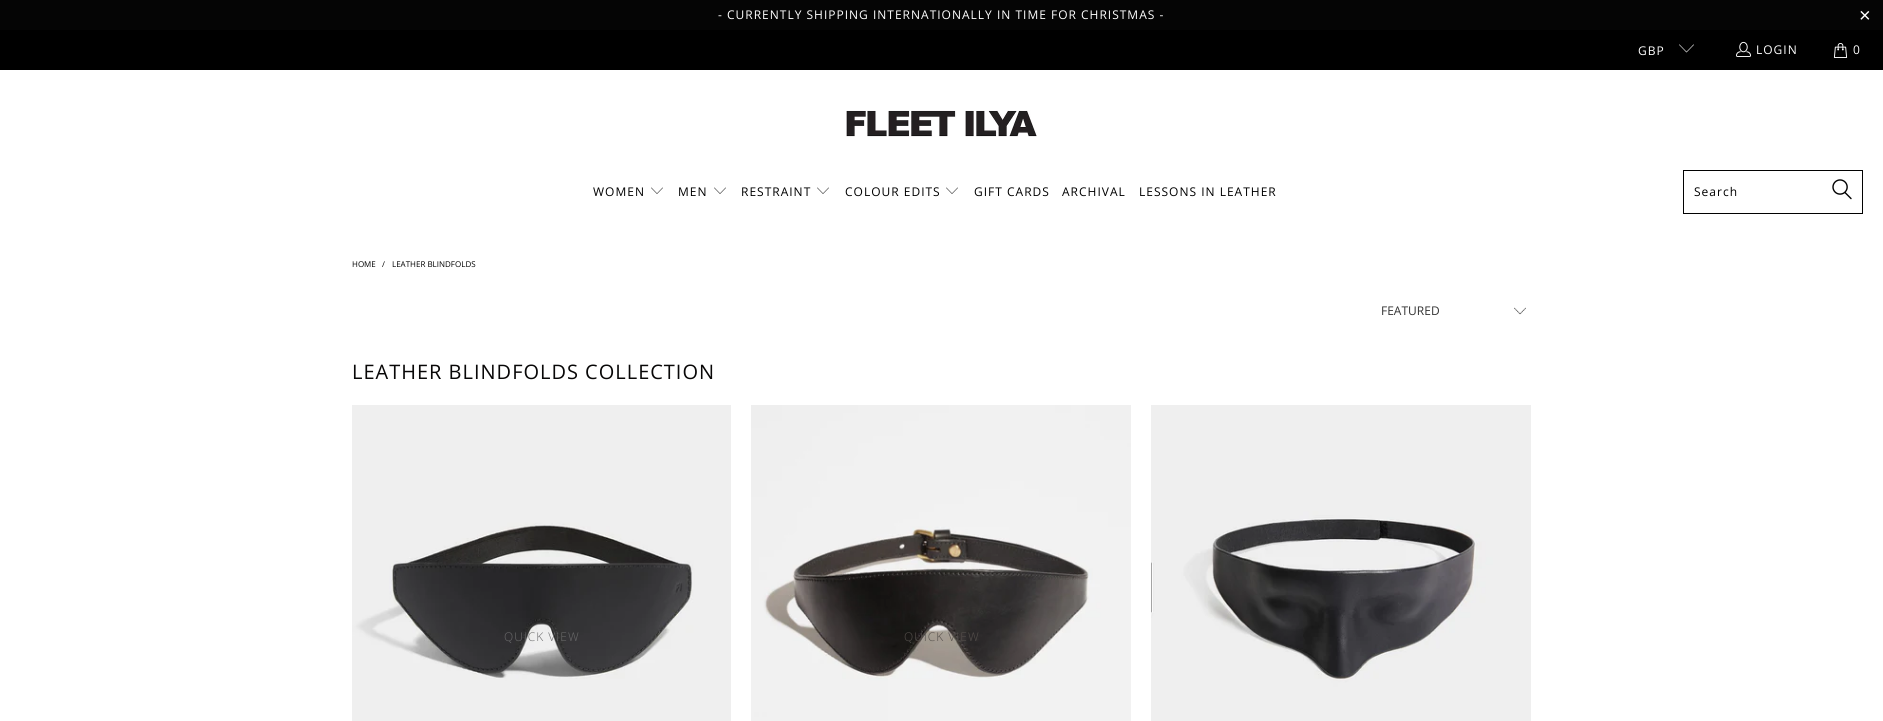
#include <cairo.h>
#include <math.h>
#include <stddef.h>


static void set_color(cairo_t *cr, unsigned color) {
    cairo_set_source_rgb(cr, (color >> 16) / 255.0, (color >> 8 & 255) / 255.0, (color & 255) / 255.0);
}

static void draw_text(cairo_t *cr, double x, double y, const char *s, const char *family, double size, int italic, int bold, unsigned color) {
    cairo_select_font_face(cr, family, italic ? CAIRO_FONT_SLANT_ITALIC : CAIRO_FONT_SLANT_NORMAL,
        bold ? CAIRO_FONT_WEIGHT_BOLD : CAIRO_FONT_WEIGHT_NORMAL);
    cairo_set_font_size(cr, size);
    set_color(cr, color);
    cairo_move_to(cr, x, y);
    cairo_show_text(cr, s);
}

static void draw_spaced(cairo_t *cr, double x, double y, const char *s, double letter, double word) {
    cairo_move_to(cr, x, y);
    while (*s) {
        char ch[5] = {0};
        int n = 0;
        do ch[n++] = *s++; while ((*s & 0xC0) == 0x80);
        cairo_show_text(cr, ch);
        cairo_rel_move_to(cr, letter + word * (*ch == ' '), 0);
    }
}

static void fill_rect(cairo_t *cr, double x, double y, double w, double h, unsigned color) {
    set_color(cr, color);
    cairo_rectangle(cr, x, y, w, h);
    cairo_fill(cr);
}

static void draw_image(cairo_t *cr, const char *path, double x, double y, double w, double h) {
    cairo_surface_t *image = cairo_image_surface_create_from_png(path);
    cairo_save(cr);
    cairo_set_source_surface(cr, image, x, y);
    cairo_rectangle(cr, x, y, w, h);
    cairo_fill(cr);
    cairo_restore(cr);
    cairo_surface_destroy(image);
}

int main(void) {
    cairo_surface_t *surface = cairo_image_surface_create(CAIRO_FORMAT_RGB24, 1883, 721);
    cairo_t *cr = cairo_create(surface);
    cairo_font_options_t *options = cairo_font_options_create();
    cairo_font_options_set_hint_metrics(options, CAIRO_HINT_METRICS_OFF);
    cairo_font_options_set_hint_style(options, CAIRO_HINT_STYLE_NONE);
    cairo_set_font_options(cr, options);
    cairo_set_miter_limit(cr, 4);
    set_color(cr, 0xFFFFFF);
    cairo_paint(cr);
    fill_rect(cr, 0, 0, 1883, 30, 0x050505);
    cairo_select_font_face(cr, "Open Sans", CAIRO_FONT_SLANT_NORMAL, CAIRO_FONT_WEIGHT_NORMAL);
    cairo_set_font_size(cr, 12);
    set_color(cr, 0xFFFFFF);
    draw_spaced(cr, 718, 19, "- CURRENTLY SHIPPING INTERNATIONALLY IN TIME FOR CHRISTMAS -", 1, 0);
    cairo_select_font_face(cr, "Liberation Sans", CAIRO_FONT_SLANT_NORMAL, CAIRO_FONT_WEIGHT_NORMAL);
    cairo_set_font_size(cr, 20);
    draw_spaced(cr, 1859, 22, "×", 1, 0);
    fill_rect(cr, 0, 30, 1883, 40, 0x000000);
    cairo_select_font_face(cr, "Open Sans", CAIRO_FONT_SLANT_NORMAL, CAIRO_FONT_WEIGHT_NORMAL);
    cairo_set_font_size(cr, 12);
    set_color(cr, 0xFFFFFF);
    draw_spaced(cr, 1638, 55, "GBP", 1, 0);
    draw_image(cr, "assets/img1.png", 1679, 44, 15, 9);
    draw_image(cr, "assets/img2.png", 1736, 41, 15, 16);
    draw_spaced(cr, 1756, 54, "LOGIN", 1, 0);
    draw_image(cr, "assets/img3.png", 1833, 43, 15, 15);
    draw_spaced(cr, 1853, 54, "0", 1, 0);
    draw_image(cr, "assets/img4.png", 846, 110, 191, 27);
    set_color(cr, 0x000000);
    draw_spaced(cr, 593, 196, "WOMEN", 1, 0);
    draw_image(cr, "assets/img5.png", 651, 187, 12, 7);
    draw_spaced(cr, 678, 196, "MEN", 1, 0);
    draw_image(cr, "assets/img5.png", 714, 187, 12, 7);
    draw_spaced(cr, 741, 196, "RESTRAINT", 1, 0);
    draw_image(cr, "assets/img5.png", 817, 187, 12, 7);
    draw_spaced(cr, 845, 196, "COLOUR EDITS", 1, 0);
    draw_image(cr, "assets/img5.png", 946, 187, 12, 7);
    draw_spaced(cr, 974, 196, "GIFT CARDS", 1, 0);
    draw_spaced(cr, 1062, 196, "ARCHIVAL", 1, 0);
    draw_spaced(cr, 1139, 196, "LESSONS IN LEATHER", 1, 0);
    cairo_rectangle(cr, 1683.5, 170.5, 179, 43);
    set_color(cr, 0x010101);
    cairo_set_line_width(cr, 1);
    cairo_stroke(cr);
    set_color(cr, 0x000000);
    draw_spaced(cr, 1694, 196, "Search", 1, 0);
    draw_image(cr, "assets/img6.png", 1832, 179, 20, 21);
    draw_text(cr, 352, 267, "HOME", "Open Sans", 8, 0, 0, 0x000000);
    draw_text(cr, 382, 267, "/", "Open Sans", 8, 0, 0, 0x000000);
    draw_text(cr, 392, 267, "LEATHER BLINDFOLDS", "Open Sans", 8, 0, 0, 0x000000);
    draw_image(cr, "assets/img7.png", 1514, 307, 12, 8);
    draw_text(cr, 1381, 315, "FEATURED", "Open Sans", 12, 0, 0, 0x333333);
    cairo_set_font_size(cr, 20);
    set_color(cr, 0x080707);
    draw_spaced(cr, 352, 379, "LEATHER BLINDFOLDS COLLECTION", 1, 0);
    draw_image(cr, "assets/img8.png", 352, 405, 379, 316);
    cairo_select_font_face(cr, "Open Sans Light", CAIRO_FONT_SLANT_NORMAL, CAIRO_FONT_WEIGHT_NORMAL);
    cairo_set_font_size(cr, 12);
    set_color(cr, 0x6B6B6C);
    draw_spaced(cr, 504, 641, "QUICK VIEW", 1, 0);
    draw_image(cr, "assets/img9.png", 751, 405, 380, 316);
    set_color(cr, 0x55504C);
    draw_spaced(cr, 904, 641, "QUICK VIEW", 1, 0);
    draw_image(cr, "assets/img10.png", 1151, 405, 380, 316);
    cairo_surface_write_to_png(surface, "output.png");
    cairo_font_options_destroy(options);
    cairo_destroy(cr);
    cairo_surface_destroy(surface);
    return 0;
}
